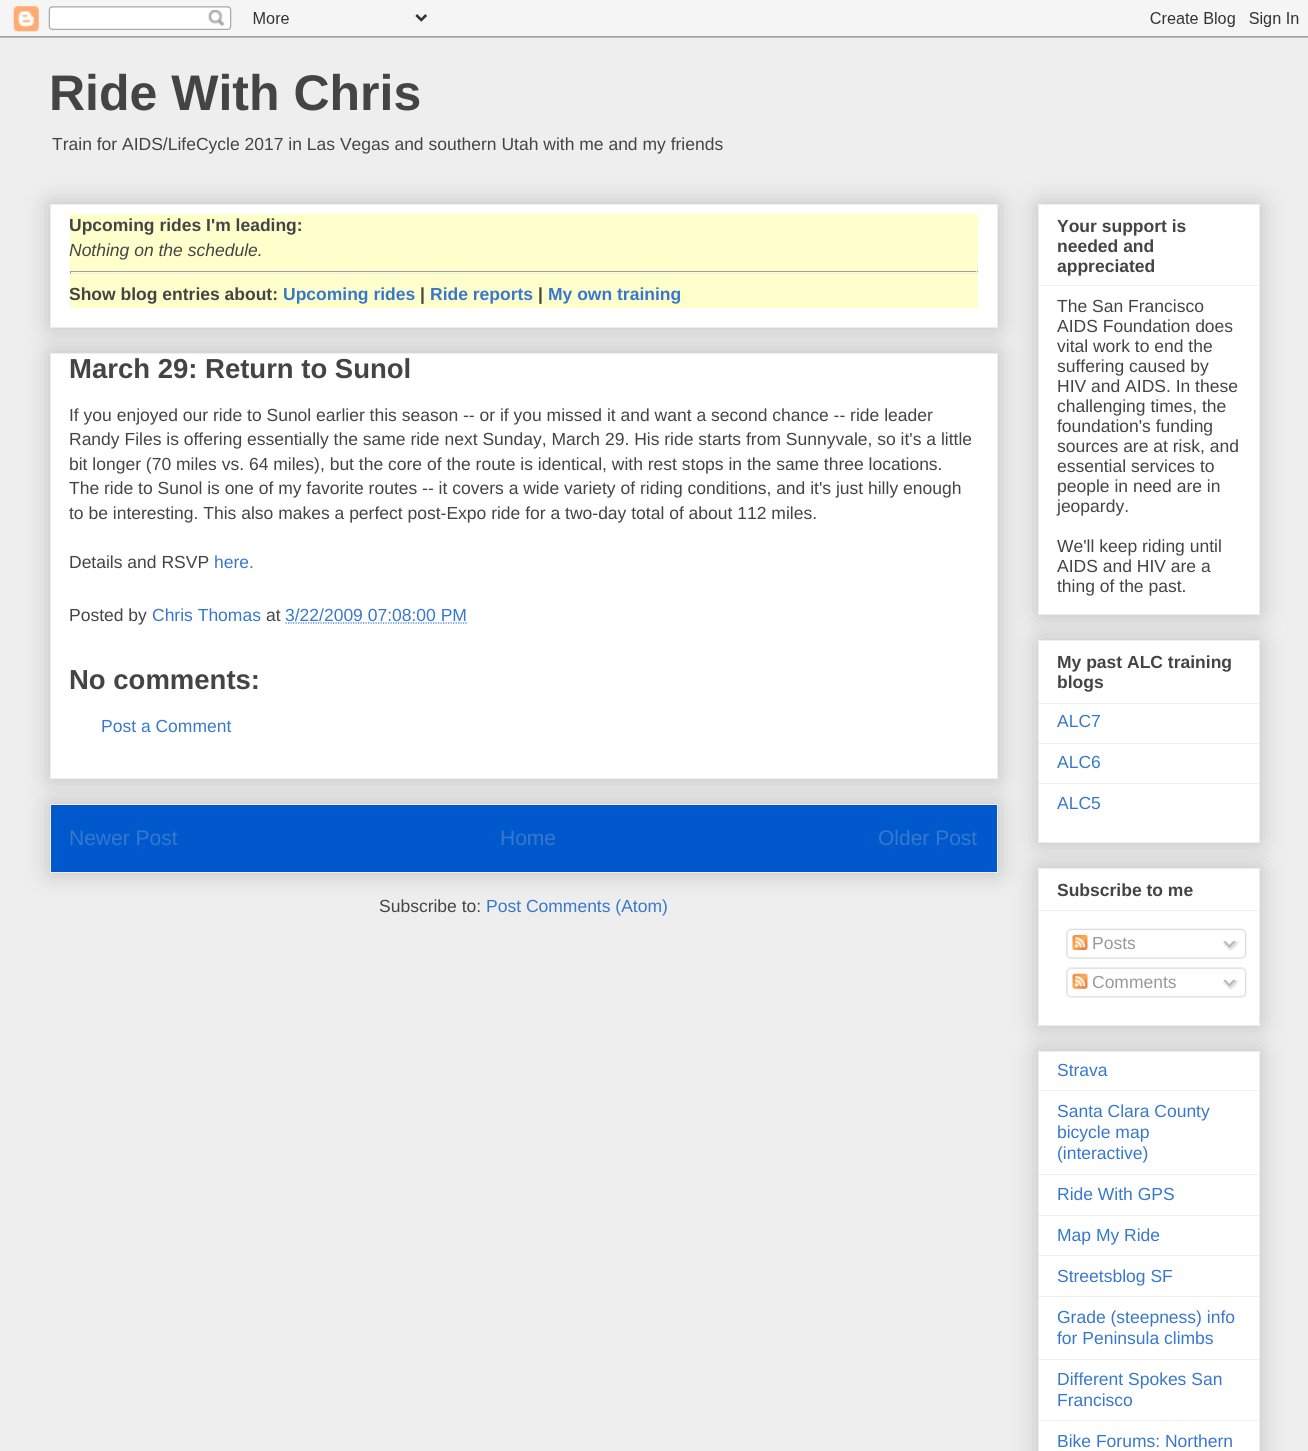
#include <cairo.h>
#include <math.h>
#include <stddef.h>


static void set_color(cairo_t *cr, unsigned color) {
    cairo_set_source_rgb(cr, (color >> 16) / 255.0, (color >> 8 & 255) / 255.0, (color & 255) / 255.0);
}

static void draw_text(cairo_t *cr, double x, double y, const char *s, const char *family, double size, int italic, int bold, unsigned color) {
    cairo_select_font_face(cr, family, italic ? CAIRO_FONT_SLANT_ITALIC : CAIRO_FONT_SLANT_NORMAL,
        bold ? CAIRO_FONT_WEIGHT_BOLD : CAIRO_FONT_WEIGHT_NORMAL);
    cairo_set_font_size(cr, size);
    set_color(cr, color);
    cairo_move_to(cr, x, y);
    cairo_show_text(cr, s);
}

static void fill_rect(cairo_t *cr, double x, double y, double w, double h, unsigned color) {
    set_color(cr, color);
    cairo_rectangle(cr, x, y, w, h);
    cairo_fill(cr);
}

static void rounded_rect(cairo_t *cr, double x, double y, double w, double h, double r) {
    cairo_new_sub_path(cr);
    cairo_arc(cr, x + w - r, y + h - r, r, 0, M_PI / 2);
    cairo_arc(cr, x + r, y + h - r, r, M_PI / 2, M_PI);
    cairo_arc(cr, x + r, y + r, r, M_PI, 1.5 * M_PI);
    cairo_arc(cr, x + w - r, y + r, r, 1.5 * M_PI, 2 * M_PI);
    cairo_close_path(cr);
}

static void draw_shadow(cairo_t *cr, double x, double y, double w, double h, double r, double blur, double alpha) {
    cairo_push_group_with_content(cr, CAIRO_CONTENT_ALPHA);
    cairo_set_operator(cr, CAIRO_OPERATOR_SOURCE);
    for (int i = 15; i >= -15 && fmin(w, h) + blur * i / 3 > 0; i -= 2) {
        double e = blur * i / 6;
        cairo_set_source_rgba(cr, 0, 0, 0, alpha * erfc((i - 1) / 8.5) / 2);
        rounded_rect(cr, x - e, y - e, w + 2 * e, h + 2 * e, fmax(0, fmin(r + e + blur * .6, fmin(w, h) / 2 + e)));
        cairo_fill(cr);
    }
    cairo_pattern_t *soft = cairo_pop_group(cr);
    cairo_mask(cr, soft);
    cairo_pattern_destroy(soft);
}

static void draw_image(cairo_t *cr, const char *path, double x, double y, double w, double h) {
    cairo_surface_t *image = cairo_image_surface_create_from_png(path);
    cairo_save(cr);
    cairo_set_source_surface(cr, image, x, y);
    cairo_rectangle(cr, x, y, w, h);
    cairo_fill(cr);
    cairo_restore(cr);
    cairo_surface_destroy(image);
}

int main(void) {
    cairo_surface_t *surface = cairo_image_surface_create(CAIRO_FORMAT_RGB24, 1308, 1451);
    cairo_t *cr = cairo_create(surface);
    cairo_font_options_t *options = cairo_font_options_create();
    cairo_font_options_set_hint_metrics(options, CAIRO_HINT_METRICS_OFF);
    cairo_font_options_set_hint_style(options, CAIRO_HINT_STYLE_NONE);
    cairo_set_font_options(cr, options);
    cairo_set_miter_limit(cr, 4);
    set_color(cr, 0xEEEEEE);
    cairo_paint(cr);
    draw_image(cr, "assets/img1.png", 0, 0, 1308, 38);
    draw_text(cr, 49, 110, "Ride With Chris", "Liberation Sans", 50, 0, 1, 0x444444);
    draw_text(cr, 52, 150, "Train for AIDS/LifeCycle 2017 in Las Vegas and southern Utah with me and my friends", "Liberation Sans", 17.5, 0, 0, 0x444444);
    set_color(cr, 0x000000);
    draw_shadow(cr, 50, 204, 948, 124, 0, 12.5, 0.2);
    set_color(cr, 0xFFFFFF);
    cairo_rectangle(cr, 50.5, 204.5, 947, 123);
    cairo_fill_preserve(cr);
    set_color(cr, 0xEEEEEE);
    cairo_set_line_width(cr, 1);
    cairo_stroke(cr);
    fill_rect(cr, 70, 214, 908, 94, 0xFFFFCC);
    draw_text(cr, 69, 231, "Upcoming rides I'm leading:", "Liberation Sans", 17.5, 0, 1, 0x444444);
    draw_text(cr, 69, 256, "Nothing on the schedule.", "Liberation Sans", 17.5, 1, 0, 0x444444);
    fill_rect(cr, 70, 271, 908, 1, 0x9F9F9F);
    fill_rect(cr, 976, 271, 1, 3, 0xEEEEEE);
    fill_rect(cr, 70, 273, 908, 1, 0xEEEEEE);
    fill_rect(cr, 70, 271, 1, 3, 0x9F9F9F);
    draw_text(cr, 69, 300, "Show blog entries about:", "Liberation Sans", 17.5, 0, 1, 0x444444);
    draw_text(cr, 283, 300, "Upcoming rides", "Liberation Sans", 17.5, 0, 1, 0x3778CD);
    draw_text(cr, 420, 300, "|", "Liberation Sans", 17.5, 0, 1, 0x444444);
    draw_text(cr, 430, 300, "Ride reports", "Liberation Sans", 17.5, 0, 1, 0x3778CD);
    draw_text(cr, 538, 300, "|", "Liberation Sans", 17.5, 0, 1, 0x444444);
    draw_text(cr, 548, 300, "My own training", "Liberation Sans", 17.5, 0, 1, 0x3778CD);
    set_color(cr, 0x000000);
    draw_shadow(cr, 50, 804, 948, 69, 0, 12.5, 0.2);
    set_color(cr, 0x0058CD);
    cairo_rectangle(cr, 50.5, 804.5, 947, 68);
    cairo_fill_preserve(cr);
    set_color(cr, 0xEEEEEE);
    cairo_stroke(cr);
    set_color(cr, 0x000000);
    draw_shadow(cr, 50, 353, 948, 426, 0, 12.5, 0.2);
    set_color(cr, 0xFFFFFF);
    cairo_rectangle(cr, 50.5, 353.5, 947, 425);
    cairo_fill_preserve(cr);
    set_color(cr, 0xEEEEEE);
    cairo_stroke(cr);
    draw_text(cr, 69, 378, "March 29: Return to Sunol", "Liberation Sans", 27.5, 0, 1, 0x444444);
    draw_text(cr, 69, 421, "If you enjoyed our ride to Sunol earlier this season -- or if you missed it and want a second chance -- ride leader", "Liberation Sans", 17.5, 0, 0, 0x444444);
    draw_text(cr, 69, 445, "Randy Files is offering essentially the same ride next Sunday, March 29. His ride starts from Sunnyvale, so it's a little", "Liberation Sans", 17.5, 0, 0, 0x444444);
    draw_text(cr, 69, 470, "bit longer (70 miles vs. 64 miles), but the core of the route is identical, with rest stops in the same three locations.", "Liberation Sans", 17.5, 0, 0, 0x444444);
    draw_text(cr, 69, 494, "The ride to Sunol is one of my favorite routes -- it covers a wide variety of riding conditions, and it's just hilly enough", "Liberation Sans", 17.5, 0, 0, 0x444444);
    draw_text(cr, 69, 519, "to be interesting. This also makes a perfect post-Expo ride for a two-day total of about 112 miles.", "Liberation Sans", 17.5, 0, 0, 0x444444);
    draw_text(cr, 69, 568, "Details and RSVP", "Liberation Sans", 17.5, 0, 0, 0x444444);
    draw_text(cr, 214, 568, "here.", "Liberation Sans", 17.5, 0, 0, 0x3778CD);
    draw_text(cr, 69, 621, "Posted by", "Liberation Sans", 17.5, 0, 0, 0x444444);
    draw_text(cr, 152, 621, "Chris Thomas", "Liberation Sans", 17.5, 0, 0, 0x3778CD);
    draw_text(cr, 266, 621, "at", "Liberation Sans", 17.5, 0, 0, 0x444444);
    draw_text(cr, 285, 621, "3/22/2009 07:08:00 PM", "Liberation Sans", 17.5, 0, 0, 0x3778CD);
    cairo_new_path(cr);
    cairo_move_to(cr, 285.5, 623);
    cairo_line_to(cr, 467.5, 623);
    cairo_set_line_width(cr, 1.2);
    cairo_set_dash(cr, (double[]){1.25, 1.25}, 2, 0);
    cairo_stroke(cr);
    draw_text(cr, 69, 689, "No comments:", "Liberation Sans", 27.5, 0, 1, 0x444444);
    draw_text(cr, 101, 732, "Post a Comment", "Liberation Sans", 17.5, 0, 0, 0x3778CD);
    draw_text(cr, 69, 845, "Newer Post", "Liberation Sans", 21, 0, 0, 0x3778CD);
    draw_text(cr, 500, 845, "Home", "Liberation Sans", 21, 0, 0, 0x3778CD);
    draw_text(cr, 878, 845, "Older Post", "Liberation Sans", 21, 0, 0, 0x3778CD);
    draw_text(cr, 379, 912, "Subscribe to:", "Liberation Sans", 17.5, 0, 0, 0x444444);
    draw_text(cr, 486, 912, "Post Comments (Atom)", "Liberation Sans", 17.5, 0, 0, 0x3778CD);
    set_color(cr, 0x000000);
    draw_shadow(cr, 1038, 204, 222, 411, 0, 12.5, 0.2);
    set_color(cr, 0xFFFFFF);
    cairo_rectangle(cr, 1038.5, 204.5, 221, 410);
    cairo_fill_preserve(cr);
    set_color(cr, 0xEEEEEE);
    cairo_set_line_width(cr, 1);
    cairo_set_dash(cr, NULL, 0, 0);
    cairo_stroke(cr);
    draw_text(cr, 1057, 232, "Your support is", "Liberation Sans", 17.5, 0, 1, 0x444444);
    draw_text(cr, 1057, 252, "needed and", "Liberation Sans", 17.5, 0, 1, 0x444444);
    draw_text(cr, 1057, 272, "appreciated", "Liberation Sans", 17.5, 0, 1, 0x444444);
    fill_rect(cr, 1039, 285, 220, 1, 0xEEEEEE);
    draw_text(cr, 1057, 312, "The San Francisco", "Liberation Sans", 17.5, 0, 0, 0x444444);
    draw_text(cr, 1057, 332, "AIDS Foundation does", "Liberation Sans", 17.5, 0, 0, 0x444444);
    draw_text(cr, 1057, 352, "vital work to end the", "Liberation Sans", 17.5, 0, 0, 0x444444);
    draw_text(cr, 1057, 372, "suffering caused by", "Liberation Sans", 17.5, 0, 0, 0x444444);
    draw_text(cr, 1057, 392, "HIV and AIDS. In these", "Liberation Sans", 17.5, 0, 0, 0x444444);
    draw_text(cr, 1057, 412, "challenging times, the", "Liberation Sans", 17.5, 0, 0, 0x444444);
    draw_text(cr, 1057, 432, "foundation's funding", "Liberation Sans", 17.5, 0, 0, 0x444444);
    draw_text(cr, 1057, 452, "sources are at risk, and", "Liberation Sans", 17.5, 0, 0, 0x444444);
    draw_text(cr, 1057, 472, "essential services to", "Liberation Sans", 17.5, 0, 0, 0x444444);
    draw_text(cr, 1057, 492, "people in need are in", "Liberation Sans", 17.5, 0, 0, 0x444444);
    draw_text(cr, 1057, 512, "jeopardy.", "Liberation Sans", 17.5, 0, 0, 0x444444);
    draw_text(cr, 1057, 552, "We'll keep riding until", "Liberation Sans", 17.5, 0, 0, 0x444444);
    draw_text(cr, 1057, 572, "AIDS and HIV are a", "Liberation Sans", 17.5, 0, 0, 0x444444);
    draw_text(cr, 1057, 592, "thing of the past.", "Liberation Sans", 17.5, 0, 0, 0x444444);
    set_color(cr, 0x000000);
    draw_shadow(cr, 1038, 868, 222, 158, 0, 12.5, 0.2);
    set_color(cr, 0xFFFFFF);
    cairo_rectangle(cr, 1038.5, 868.5, 221, 157);
    cairo_fill_preserve(cr);
    set_color(cr, 0xEEEEEE);
    cairo_stroke(cr);
    set_color(cr, 0x000000);
    draw_shadow(cr, 1038, 640, 222, 203, 0, 12.5, 0.2);
    set_color(cr, 0xFFFFFF);
    cairo_rectangle(cr, 1038.5, 640.5, 221, 202);
    cairo_fill_preserve(cr);
    set_color(cr, 0xEEEEEE);
    cairo_stroke(cr);
    draw_text(cr, 1057, 668, "My past ALC training", "Liberation Sans", 17.5, 0, 1, 0x444444);
    draw_text(cr, 1057, 688, "blogs", "Liberation Sans", 17.5, 0, 1, 0x444444);
    fill_rect(cr, 1039, 703, 220, 1, 0xEEEEEE);
    draw_text(cr, 1057, 727, "ALC7", "Liberation Sans", 17.5, 0, 0, 0x3778CD);
    fill_rect(cr, 1039, 743, 220, 1, 0xEEEEEE);
    draw_text(cr, 1057, 768, "ALC6", "Liberation Sans", 17.5, 0, 0, 0x3778CD);
    fill_rect(cr, 1039, 783, 220, 1, 0xEEEEEE);
    draw_text(cr, 1057, 809, "ALC5", "Liberation Sans", 17.5, 0, 0, 0x3778CD);
    draw_text(cr, 1057, 896, "Subscribe to me", "Liberation Sans", 17.5, 0, 1, 0x444444);
    fill_rect(cr, 1039, 910, 220, 1, 0xEEEEEE);
    draw_image(cr, "assets/img2.png", 1066, 928, 181, 27);
    draw_image(cr, "assets/img3.png", 1072, 935, 16, 15);
    draw_text(cr, 1092, 949, "Posts", "Liberation Sans", 17.5, 0, 0, 0x999999);
    draw_image(cr, "assets/img4.png", 1222, 940, 17, 11);
    draw_image(cr, "assets/img5.png", 1066, 955, 180, 4);
    draw_image(cr, "assets/img6.png", 1066, 967, 181, 27);
    draw_image(cr, "assets/img7.png", 1072, 973, 16, 16);
    draw_text(cr, 1092, 988, "Comments", "Liberation Sans", 17.5, 0, 0, 0x999999);
    draw_image(cr, "assets/img8.png", 1222, 979, 17, 11);
    draw_image(cr, "assets/img9.png", 1066, 993, 180, 5);
    set_color(cr, 0x000000);
    draw_shadow(cr, 1038, 1051, 222, 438, 0, 12.5, 0.2);
    set_color(cr, 0xFFFFFF);
    cairo_rectangle(cr, 1038.5, 1051.5, 221, 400);
    cairo_fill_preserve(cr);
    set_color(cr, 0xEEEEEE);
    cairo_stroke(cr);
    draw_text(cr, 1057, 1076, "Strava", "Liberation Sans", 17.5, 0, 0, 0x3778CD);
    fill_rect(cr, 1039, 1090, 220, 1, 0xEEEEEE);
    draw_text(cr, 1057, 1117, "Santa Clara County", "Liberation Sans", 17.5, 0, 0, 0x3778CD);
    draw_text(cr, 1057, 1138, "bicycle map", "Liberation Sans", 17.5, 0, 0, 0x3778CD);
    draw_text(cr, 1057, 1159, "(interactive)", "Liberation Sans", 17.5, 0, 0, 0x3778CD);
    fill_rect(cr, 1039, 1174, 220, 1, 0xEEEEEE);
    draw_text(cr, 1057, 1200, "Ride With GPS", "Liberation Sans", 17.5, 0, 0, 0x3778CD);
    fill_rect(cr, 1039, 1215, 220, 1, 0xEEEEEE);
    draw_text(cr, 1057, 1241, "Map My Ride", "Liberation Sans", 17.5, 0, 0, 0x3778CD);
    fill_rect(cr, 1039, 1255, 220, 1, 0xEEEEEE);
    draw_text(cr, 1057, 1282, "Streetsblog SF", "Liberation Sans", 17.5, 0, 0, 0x3778CD);
    fill_rect(cr, 1039, 1296, 220, 1, 0xEEEEEE);
    draw_text(cr, 1057, 1323, "Grade (steepness) info", "Liberation Sans", 17.5, 0, 0, 0x3778CD);
    draw_text(cr, 1057, 1344, "for Peninsula climbs", "Liberation Sans", 17.5, 0, 0, 0x3778CD);
    fill_rect(cr, 1039, 1359, 220, 1, 0xEEEEEE);
    draw_text(cr, 1057, 1385, "Different Spokes San", "Liberation Sans", 17.5, 0, 0, 0x3778CD);
    draw_text(cr, 1057, 1406, "Francisco", "Liberation Sans", 17.5, 0, 0, 0x3778CD);
    fill_rect(cr, 1039, 1420, 220, 1, 0xEEEEEE);
    draw_text(cr, 1057, 1447, "Bike Forums: Northern", "Liberation Sans", 17.5, 0, 0, 0x3778CD);
    cairo_surface_write_to_png(surface, "output.png");
    cairo_font_options_destroy(options);
    cairo_destroy(cr);
    cairo_surface_destroy(surface);
    return 0;
}
